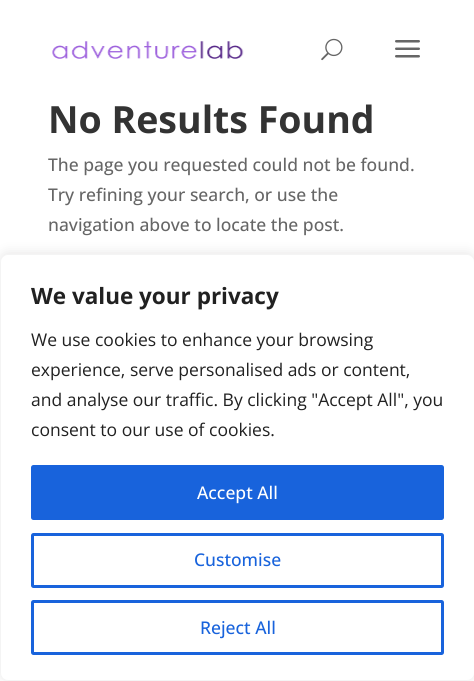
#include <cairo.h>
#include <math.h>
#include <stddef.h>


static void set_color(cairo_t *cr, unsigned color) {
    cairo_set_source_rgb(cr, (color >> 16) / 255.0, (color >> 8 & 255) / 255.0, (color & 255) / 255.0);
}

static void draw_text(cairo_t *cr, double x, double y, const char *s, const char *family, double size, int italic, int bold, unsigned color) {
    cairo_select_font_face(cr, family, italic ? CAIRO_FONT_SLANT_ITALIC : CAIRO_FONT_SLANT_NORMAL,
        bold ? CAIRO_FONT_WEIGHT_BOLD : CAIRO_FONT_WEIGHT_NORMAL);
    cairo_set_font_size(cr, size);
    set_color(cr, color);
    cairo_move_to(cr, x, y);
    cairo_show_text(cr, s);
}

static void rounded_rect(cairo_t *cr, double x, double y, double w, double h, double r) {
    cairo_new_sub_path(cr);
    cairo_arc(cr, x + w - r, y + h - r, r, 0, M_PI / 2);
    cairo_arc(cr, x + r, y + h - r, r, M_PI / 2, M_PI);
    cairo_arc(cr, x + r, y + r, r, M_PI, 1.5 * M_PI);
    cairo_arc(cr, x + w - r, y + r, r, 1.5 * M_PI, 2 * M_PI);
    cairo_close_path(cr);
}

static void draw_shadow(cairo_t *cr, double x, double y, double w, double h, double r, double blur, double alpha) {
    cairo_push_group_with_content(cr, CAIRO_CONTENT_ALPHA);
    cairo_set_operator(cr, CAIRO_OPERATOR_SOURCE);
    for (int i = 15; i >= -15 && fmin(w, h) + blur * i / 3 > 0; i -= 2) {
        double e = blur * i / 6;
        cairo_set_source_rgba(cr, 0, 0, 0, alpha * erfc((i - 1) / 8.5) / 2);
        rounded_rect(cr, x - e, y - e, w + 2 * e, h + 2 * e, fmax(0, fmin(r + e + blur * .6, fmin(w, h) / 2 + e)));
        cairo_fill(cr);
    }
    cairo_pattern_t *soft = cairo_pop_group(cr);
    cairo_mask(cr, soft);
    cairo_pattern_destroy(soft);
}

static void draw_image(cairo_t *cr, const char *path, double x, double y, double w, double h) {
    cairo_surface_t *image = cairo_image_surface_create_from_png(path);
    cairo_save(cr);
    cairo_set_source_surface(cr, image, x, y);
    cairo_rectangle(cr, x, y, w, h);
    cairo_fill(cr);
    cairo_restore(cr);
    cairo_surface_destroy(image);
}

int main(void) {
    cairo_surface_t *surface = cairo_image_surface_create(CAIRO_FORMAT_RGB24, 474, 681);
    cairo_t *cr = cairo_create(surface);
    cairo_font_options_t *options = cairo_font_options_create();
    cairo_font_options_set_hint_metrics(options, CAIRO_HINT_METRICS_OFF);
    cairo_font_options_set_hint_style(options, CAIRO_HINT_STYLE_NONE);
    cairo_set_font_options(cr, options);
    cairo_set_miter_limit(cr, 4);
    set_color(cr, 0xFFFFFF);
    cairo_paint(cr);
    draw_image(cr, "assets/img1.png", 52, 41, 192, 18);
    draw_image(cr, "assets/img2.png", 321, 38, 22, 23);
    draw_image(cr, "assets/img3.png", 395, 40, 25, 18);
    draw_text(cr, 48, 133, "No Results Found", "Open Sans", 37.5, 0, 1, 0x333333);
    draw_text(cr, 48, 171, "The page you requested could not be found.", "Open Sans Medium", 17.5, 0, 0, 0x666666);
    draw_text(cr, 48, 201, "Try refining your search, or use the", "Open Sans Medium", 17.5, 0, 0, 0x666666);
    draw_text(cr, 48, 231, "navigation above to locate the post.", "Open Sans Medium", 17.5, 0, 0, 0x666666);
    set_color(cr, 0xACABAB);
    draw_shadow(cr, 0, 253, 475, 427, 8, 6, 0.3);
    set_color(cr, 0xFFFFFF);
    rounded_rect(cr, 0.5, 254.5, 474, 426, 7.5);
    cairo_fill_preserve(cr);
    set_color(cr, 0xF4F4F4);
    cairo_set_line_width(cr, 1);
    cairo_stroke(cr);
    draw_text(cr, 31, 304, "We value your privacy", "Open Sans", 22.5, 0, 1, 0x212121);
    draw_text(cr, 31, 346, "We use cookies to enhance your browsing", "Open Sans", 17.5, 0, 0, 0x212121);
    draw_text(cr, 31, 376, "experience, serve personalised ads or content,", "Open Sans", 17.5, 0, 0, 0x212121);
    draw_text(cr, 31, 406, "and analyse our traffic. By clicking \"Accept All\", you", "Open Sans", 17.5, 0, 0, 0x212121);
    draw_text(cr, 31, 436, "consent to our use of cookies.", "Open Sans", 17.5, 0, 0, 0x212121);
    set_color(cr, 0x1863DC);
    rounded_rect(cr, 32.5, 466.5, 410, 52, 1);
    cairo_fill_preserve(cr);
    cairo_set_line_width(cr, 3);
    cairo_stroke(cr);
    draw_text(cr, 197, 499, "Accept All", "Open Sans Medium", 17.5, 0, 0, 0xFFFFFF);
    rounded_rect(cr, 32.5, 534.5, 410, 52, 1);
    set_color(cr, 0x1863DC);
    cairo_stroke(cr);
    draw_text(cr, 194, 566, "Customise", "Open Sans Medium", 17.5, 0, 0, 0x1863DC);
    rounded_rect(cr, 32.5, 601.5, 410, 52, 1);
    cairo_stroke(cr);
    draw_text(cr, 200, 634, "Reject All", "Open Sans Medium", 17.5, 0, 0, 0x1863DC);
    cairo_surface_write_to_png(surface, "output.png");
    cairo_font_options_destroy(options);
    cairo_destroy(cr);
    cairo_surface_destroy(surface);
    return 0;
}
